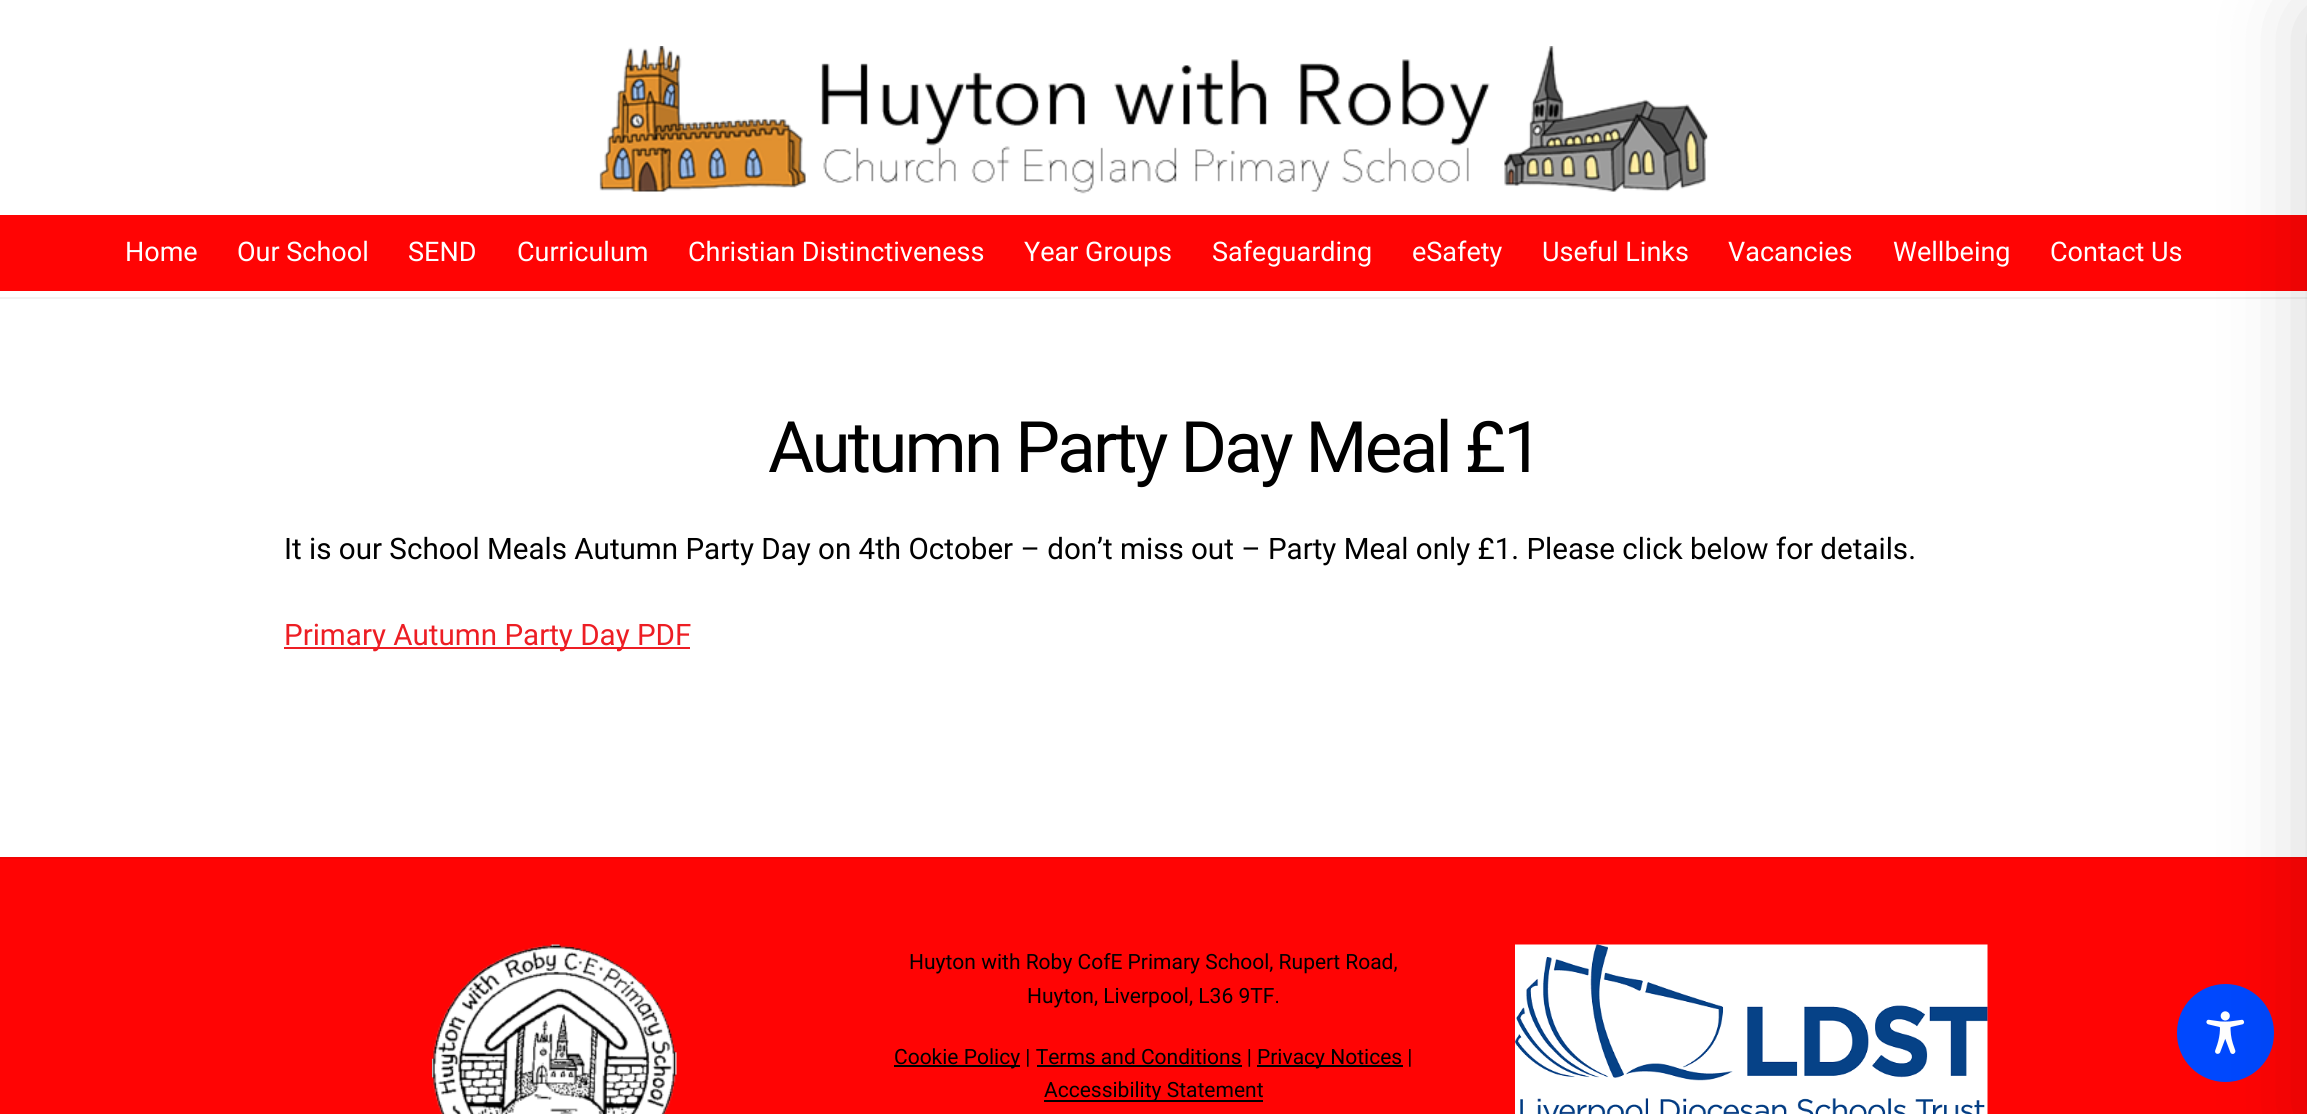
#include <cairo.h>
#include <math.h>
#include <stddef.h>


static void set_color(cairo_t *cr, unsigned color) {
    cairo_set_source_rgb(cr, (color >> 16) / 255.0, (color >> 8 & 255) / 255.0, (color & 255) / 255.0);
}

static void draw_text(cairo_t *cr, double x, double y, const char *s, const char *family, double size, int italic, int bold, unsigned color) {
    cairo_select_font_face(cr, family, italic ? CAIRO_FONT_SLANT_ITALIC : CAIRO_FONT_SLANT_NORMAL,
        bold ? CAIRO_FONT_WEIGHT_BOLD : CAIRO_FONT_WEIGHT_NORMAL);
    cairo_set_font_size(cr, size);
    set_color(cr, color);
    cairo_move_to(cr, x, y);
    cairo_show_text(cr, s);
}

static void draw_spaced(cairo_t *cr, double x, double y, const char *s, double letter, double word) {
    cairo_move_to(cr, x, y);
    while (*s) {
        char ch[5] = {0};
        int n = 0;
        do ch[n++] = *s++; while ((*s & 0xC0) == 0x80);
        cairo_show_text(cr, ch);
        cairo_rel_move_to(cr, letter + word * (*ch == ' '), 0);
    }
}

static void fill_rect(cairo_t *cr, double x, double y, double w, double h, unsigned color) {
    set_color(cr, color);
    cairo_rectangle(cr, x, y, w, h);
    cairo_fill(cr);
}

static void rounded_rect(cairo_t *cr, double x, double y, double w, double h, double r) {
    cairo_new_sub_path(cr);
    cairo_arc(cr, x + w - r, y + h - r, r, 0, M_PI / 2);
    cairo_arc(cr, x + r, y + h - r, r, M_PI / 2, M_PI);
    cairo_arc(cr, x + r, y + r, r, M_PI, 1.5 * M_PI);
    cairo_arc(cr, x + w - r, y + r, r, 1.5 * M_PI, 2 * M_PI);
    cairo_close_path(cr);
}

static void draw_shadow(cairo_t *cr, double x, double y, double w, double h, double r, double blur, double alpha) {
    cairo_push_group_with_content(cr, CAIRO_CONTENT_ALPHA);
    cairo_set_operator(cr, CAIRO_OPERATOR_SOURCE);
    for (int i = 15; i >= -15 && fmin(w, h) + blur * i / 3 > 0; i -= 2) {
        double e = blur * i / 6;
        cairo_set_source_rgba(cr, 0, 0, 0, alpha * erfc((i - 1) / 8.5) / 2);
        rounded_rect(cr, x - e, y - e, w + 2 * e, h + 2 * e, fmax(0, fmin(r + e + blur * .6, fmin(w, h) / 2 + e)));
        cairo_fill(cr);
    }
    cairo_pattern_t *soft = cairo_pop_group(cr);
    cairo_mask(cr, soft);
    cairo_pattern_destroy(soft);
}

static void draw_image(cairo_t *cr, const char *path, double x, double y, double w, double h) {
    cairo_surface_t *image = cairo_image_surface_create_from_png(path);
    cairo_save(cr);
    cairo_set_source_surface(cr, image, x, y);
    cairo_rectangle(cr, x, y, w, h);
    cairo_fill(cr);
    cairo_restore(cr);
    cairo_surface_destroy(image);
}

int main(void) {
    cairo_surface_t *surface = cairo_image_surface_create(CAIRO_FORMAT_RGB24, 2307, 1114);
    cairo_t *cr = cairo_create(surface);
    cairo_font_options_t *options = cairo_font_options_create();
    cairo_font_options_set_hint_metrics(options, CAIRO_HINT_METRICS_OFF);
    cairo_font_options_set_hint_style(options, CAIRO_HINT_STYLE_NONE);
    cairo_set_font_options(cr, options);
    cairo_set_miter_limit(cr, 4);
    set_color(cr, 0xFFFFFF);
    cairo_paint(cr);
    fill_rect(cr, 0, 297, 2307, 2, 0xF2F2F2);
    draw_image(cr, "assets/img1.png", 599, 46, 1109, 148);
    fill_rect(cr, 0, 215, 2307, 76, 0xFF0404);
    draw_text(cr, 125, 261, "Home", "Roboto", 27, 0, 0, 0xFFFFFF);
    draw_text(cr, 237, 261, "Our School", "Roboto", 27, 0, 0, 0xFFFFFF);
    draw_text(cr, 408, 261, "SEND", "Roboto", 27, 0, 0, 0xFFFFFF);
    draw_text(cr, 517, 261, "Curriculum", "Roboto", 27, 0, 0, 0xFFFFFF);
    draw_text(cr, 688, 261, "Christian Distinctiveness", "Roboto", 27, 0, 0, 0xFFFFFF);
    draw_text(cr, 1024, 261, "Year Groups", "Roboto", 27, 0, 0, 0xFFFFFF);
    draw_text(cr, 1212, 261, "Safeguarding", "Roboto", 27, 0, 0, 0xFFFFFF);
    draw_text(cr, 1412, 261, "eSafety", "Roboto", 27, 0, 0, 0xFFFFFF);
    draw_text(cr, 1542, 261, "Useful Links", "Roboto", 27, 0, 0, 0xFFFFFF);
    draw_text(cr, 1728, 261, "Vacancies", "Roboto", 27, 0, 0, 0xFFFFFF);
    draw_text(cr, 1893, 261, "Wellbeing", "Roboto", 27, 0, 0, 0xFFFFFF);
    draw_text(cr, 2050, 261, "Contact Us", "Roboto", 27, 0, 0, 0xFFFFFF);
    cairo_set_font_size(cr, 71);
    set_color(cr, 0x000000);
    draw_spaced(cr, 768, 472, "Autumn Party Day Meal £1", -2.8, 0);
    draw_text(cr, 284, 559, "It is our School Meals Autumn Party Day on 4th October – don’t miss out – Party Meal only £1. Please click below for details.", "Roboto", 29.57, 0, 0, 0x000000);
    fill_rect(cr, 284, 647, 406, 2, 0xED1E24);
    draw_text(cr, 284, 645, "Primary Autumn Party Day PDF", "Roboto", 29.57, 0, 0, 0xED1E24);
    fill_rect(cr, 0, 859, 2307, 255, 0xFF0404);
    fill_rect(cr, 0, 857, 2307, 2, 0xF20404);
    draw_image(cr, "assets/img2.png", 432, 944, 245, 170);
    draw_text(cr, 909, 969, "Huyton with Roby CofE Primary School, Rupert Road,", "Roboto", 21, 0, 0, 0x000000);
    draw_text(cr, 1027, 1003, "Huyton, Liverpool, L36 9TF.", "Roboto", 21, 0, 0, 0x000000);
    fill_rect(cr, 894, 1065, 126, 2, 0x000000);
    draw_text(cr, 894, 1064, "Cookie Policy | Terms and Conditions |", "Roboto", 21, 0, 0, 0x000000);
    fill_rect(cr, 1257, 1065, 146, 2, 0x000000);
    draw_text(cr, 1257, 1064, "Privacy Notices |", "Roboto", 21, 0, 0, 0x000000);
    fill_rect(cr, 1037, 1065, 205, 2, 0x000000);
    fill_rect(cr, 1044, 1100, 219, 2, 0x000000);
    draw_text(cr, 1044, 1097, "Accessibility Statement", "Roboto", 21, 0, 0, 0x000000);
    draw_image(cr, "assets/img3.png", 1515, 944, 473, 170);
    set_color(cr, 0x0048FE);
    rounded_rect(cr, 2177, 984, 97, 98, 48.5);
    cairo_fill(cr);
    draw_image(cr, "assets/img4.png", 2206, 1011, 39, 43);
    set_color(cr, 0x000000);
    draw_shadow(cr, 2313, 15, 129, 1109, 0, 45, 0.2);
    cairo_surface_write_to_png(surface, "output.png");
    cairo_font_options_destroy(options);
    cairo_destroy(cr);
    cairo_surface_destroy(surface);
    return 0;
}
